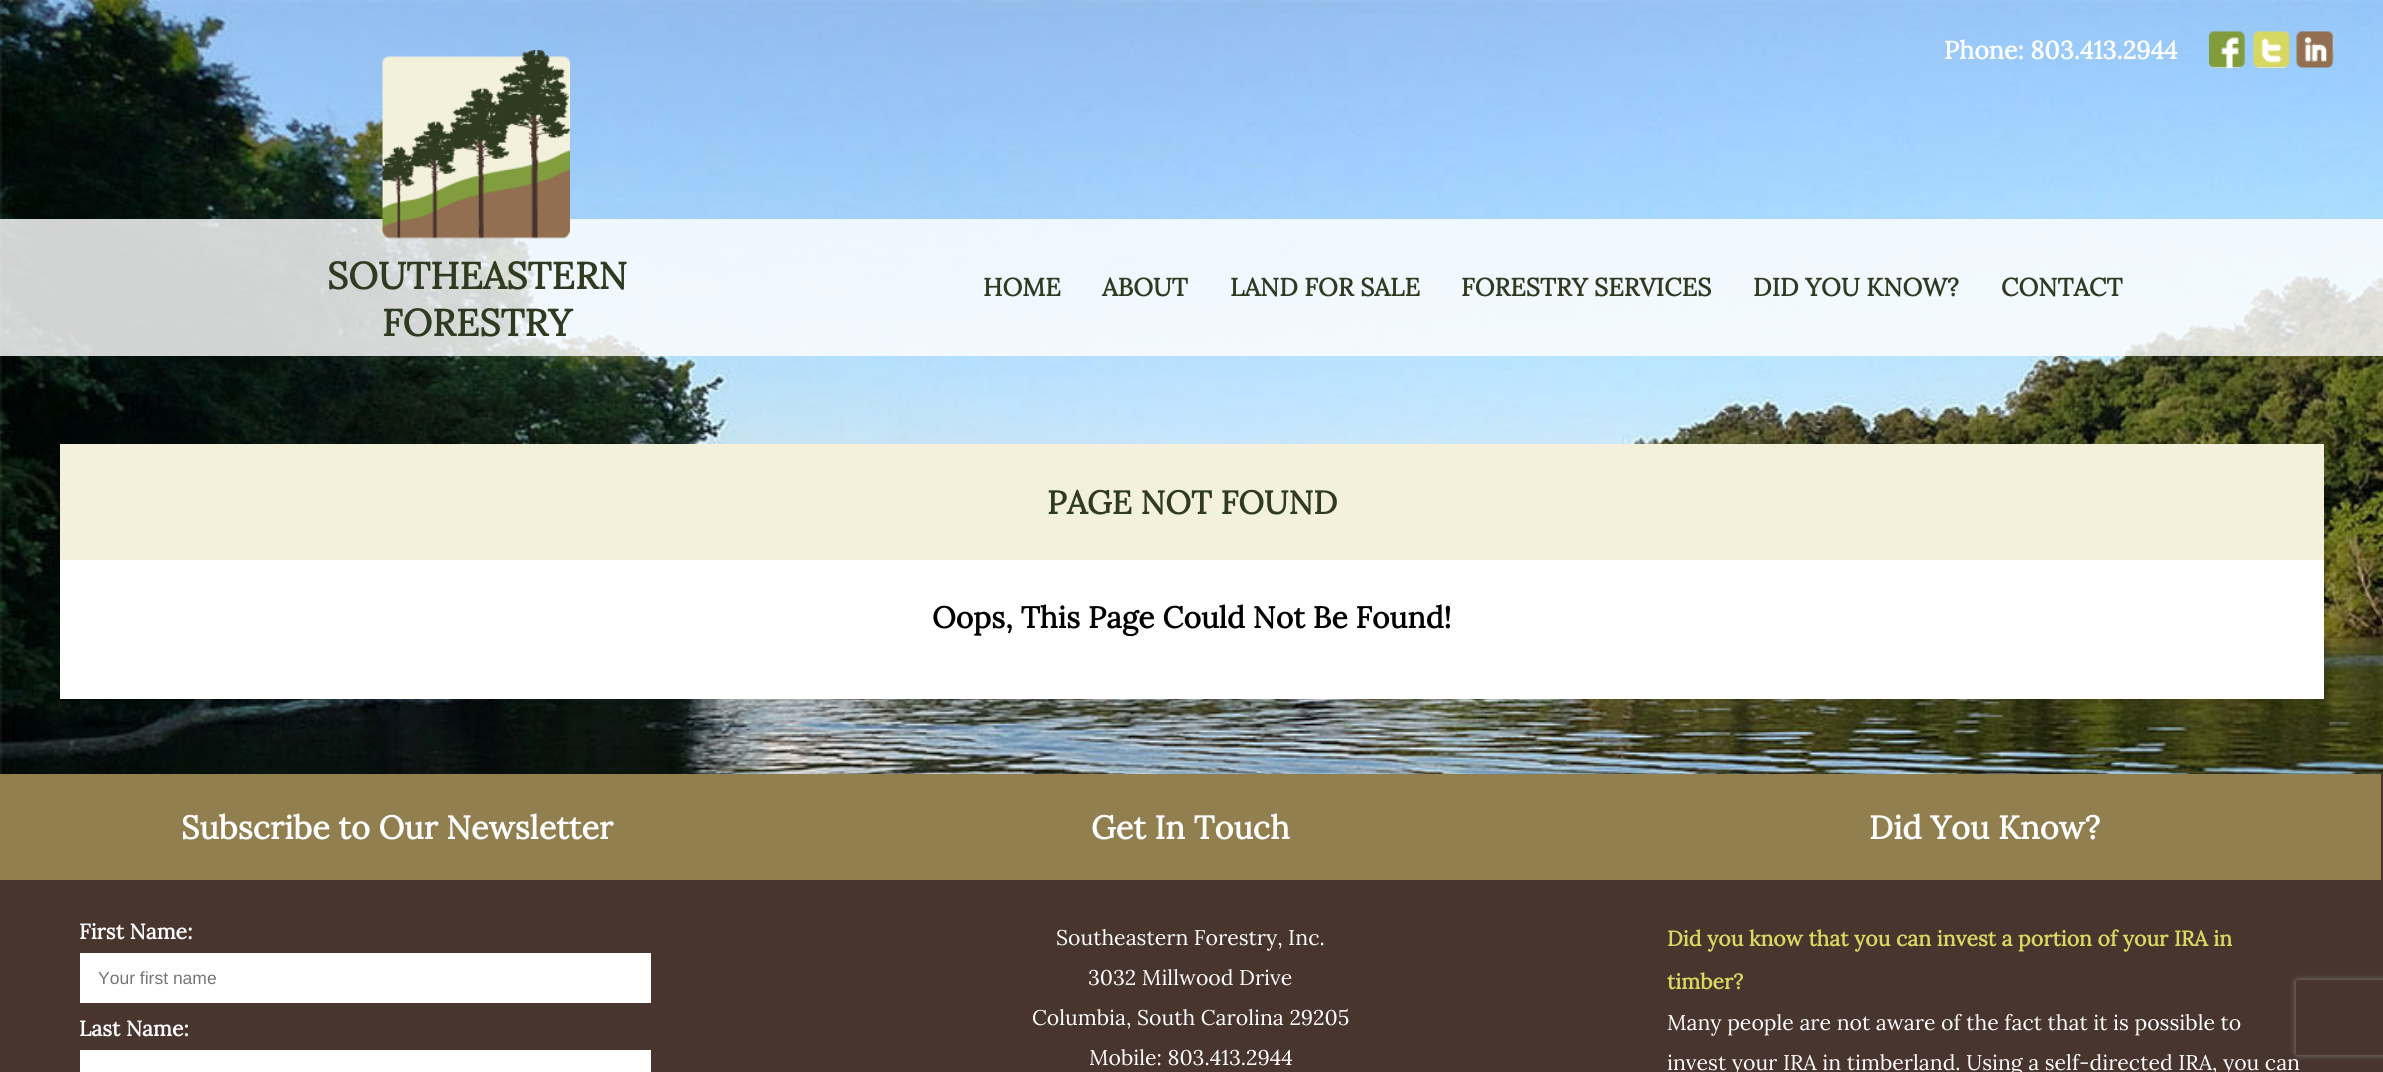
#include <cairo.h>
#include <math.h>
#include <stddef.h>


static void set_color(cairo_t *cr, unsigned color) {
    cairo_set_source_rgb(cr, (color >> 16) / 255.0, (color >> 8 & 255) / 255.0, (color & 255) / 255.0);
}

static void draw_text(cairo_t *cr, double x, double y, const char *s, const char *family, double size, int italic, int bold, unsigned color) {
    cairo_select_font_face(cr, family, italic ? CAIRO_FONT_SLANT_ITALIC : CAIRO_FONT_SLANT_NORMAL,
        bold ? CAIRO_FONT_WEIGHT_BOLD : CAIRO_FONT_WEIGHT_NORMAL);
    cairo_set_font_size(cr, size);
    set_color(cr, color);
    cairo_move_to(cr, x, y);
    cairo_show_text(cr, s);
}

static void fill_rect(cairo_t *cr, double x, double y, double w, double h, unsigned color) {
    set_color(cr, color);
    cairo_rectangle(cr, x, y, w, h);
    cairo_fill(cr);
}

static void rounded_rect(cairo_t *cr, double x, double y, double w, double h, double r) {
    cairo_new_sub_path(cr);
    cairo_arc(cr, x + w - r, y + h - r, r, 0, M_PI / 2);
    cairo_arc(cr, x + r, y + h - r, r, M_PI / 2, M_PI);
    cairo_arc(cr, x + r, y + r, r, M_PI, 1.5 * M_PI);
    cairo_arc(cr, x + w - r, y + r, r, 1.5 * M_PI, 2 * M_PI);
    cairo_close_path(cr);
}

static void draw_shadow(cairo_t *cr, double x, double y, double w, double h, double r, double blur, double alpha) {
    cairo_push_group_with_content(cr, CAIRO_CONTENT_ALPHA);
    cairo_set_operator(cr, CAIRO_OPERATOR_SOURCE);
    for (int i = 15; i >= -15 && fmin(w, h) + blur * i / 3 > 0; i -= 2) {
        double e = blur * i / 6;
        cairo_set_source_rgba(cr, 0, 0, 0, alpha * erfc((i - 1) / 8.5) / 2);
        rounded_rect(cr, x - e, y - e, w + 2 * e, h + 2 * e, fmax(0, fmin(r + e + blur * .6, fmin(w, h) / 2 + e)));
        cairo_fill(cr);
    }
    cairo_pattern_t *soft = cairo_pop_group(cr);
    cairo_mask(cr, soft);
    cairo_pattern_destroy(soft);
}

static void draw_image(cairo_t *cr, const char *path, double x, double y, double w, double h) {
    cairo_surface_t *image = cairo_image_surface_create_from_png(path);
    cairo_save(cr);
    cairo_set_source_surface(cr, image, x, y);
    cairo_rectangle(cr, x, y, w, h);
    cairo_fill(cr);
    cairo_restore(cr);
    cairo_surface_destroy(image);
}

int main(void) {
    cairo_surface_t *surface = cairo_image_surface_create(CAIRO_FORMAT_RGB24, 2383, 1072);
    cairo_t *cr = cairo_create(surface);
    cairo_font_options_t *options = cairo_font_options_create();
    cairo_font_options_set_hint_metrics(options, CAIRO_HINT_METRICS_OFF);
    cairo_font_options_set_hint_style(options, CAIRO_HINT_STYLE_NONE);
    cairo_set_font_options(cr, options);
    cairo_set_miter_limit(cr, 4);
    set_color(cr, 0xFFFFFF);
    cairo_paint(cr);
    draw_image(cr, "assets/img1.png", 0, 0, 2383, 774);
    draw_text(cr, 1944, 59, "Phone: 803.413.2944", "Lora", 25, 0, 1, 0xFFFFFF);
    draw_image(cr, "assets/img2.png", 2209, 31, 36, 37);
    draw_image(cr, "assets/img3.png", 2253, 31, 37, 37);
    draw_image(cr, "assets/img4.png", 2296, 31, 38, 37);
    cairo_set_source_rgba(cr, 1, 1, 1, 0.82);
    cairo_rectangle(cr, 0, 219, 2383, 137);
    cairo_fill(cr);
    draw_image(cr, "assets/img5.png", 382, 50, 188, 189);
    draw_text(cr, 327, 289, "SOUTHEASTERN", "Lora", 37.5, 0, 1, 0x2F3B21);
    draw_text(cr, 382, 336, "FORESTRY", "Lora", 37.5, 0, 1, 0x2F3B21);
    draw_text(cr, 983, 296, "HOME", "Lora", 25, 0, 1, 0x2F3B21);
    draw_text(cr, 1102, 296, "ABOUT", "Lora", 25, 0, 1, 0x2F3B21);
    draw_text(cr, 1230, 296, "LAND FOR SALE", "Lora", 25, 0, 1, 0x2F3B21);
    draw_text(cr, 1461, 296, "FORESTRY SERVICES", "Lora", 25, 0, 1, 0x2F3B21);
    draw_text(cr, 1753, 296, "DID YOU KNOW?", "Lora", 25, 0, 1, 0x2F3B21);
    draw_text(cr, 2001, 296, "CONTACT", "Lora", 25, 0, 1, 0x2F3B21);
    fill_rect(cr, 60, 560, 2264, 139, 0xFFFFFF);
    fill_rect(cr, 60, 444, 2264, 116, 0xF3F0DC);
    draw_text(cr, 1047, 514, "PAGE NOT FOUND", "Lora", 32.5, 0, 1, 0x2F3B21);
    draw_text(cr, 932, 628, "Oops, This Page Could Not Be Found!", "Lora", 30, 0, 1, 0x000000);
    fill_rect(cr, 0, 774, 2383, 298, 0x48352D);
    fill_rect(cr, 0, 774, 2381, 106, 0x917F50);
    draw_text(cr, 181, 839, "Subscribe to Our Newsletter", "Lora", 32.5, 0, 1, 0xFFFFFF);
    draw_text(cr, 79, 939, "First Name:", "Lora", 21.25, 0, 1, 0xFFFFFF);
    fill_rect(cr, 80, 953, 571, 50, 0xFFFFFF);
    draw_text(cr, 98, 984, "Your first name", "Liberation Sans", 17.5, 0, 0, 0x757575);
    draw_text(cr, 79, 1036, "Last Name:", "Lora", 21.25, 0, 1, 0xFFFFFF);
    fill_rect(cr, 80, 1050, 571, 22, 0xFFFFFF);
    draw_text(cr, 1091, 839, "Get In Touch", "Lora", 32.5, 0, 1, 0xFFFFFF);
    draw_text(cr, 1056, 945, "Southeastern Forestry, Inc.", "Lora", 21.25, 0, 0, 0xFFFFFF);
    draw_text(cr, 1088, 985, "3032 Millwood Drive", "Lora", 21.25, 0, 0, 0xFFFFFF);
    draw_text(cr, 1032, 1025, "Columbia, South Carolina 29205", "Lora", 21.25, 0, 0, 0xFFFFFF);
    draw_text(cr, 1089, 1065, "Mobile: 803.413.2944", "Lora", 21.25, 0, 0, 0xFFFFFF);
    draw_text(cr, 1869, 839, "Did You Know?", "Lora", 32.5, 0, 1, 0xFFFFFF);
    draw_text(cr, 1667, 946, "Did you know that you can invest a portion of your IRA in", "Lora", 21.25, 0, 1, 0xD8D962);
    draw_text(cr, 1667, 989, "timber?", "Lora", 21.25, 0, 1, 0xD8D962);
    draw_text(cr, 1667, 1030, "Many people are not aware of the fact that it is possible to", "Lora", 21.25, 0, 0, 0xFFFFFF);
    draw_text(cr, 1667, 1070, "invest your IRA in timberland. Using a self-directed IRA, you can", "Lora", 21.25, 0, 0, 0xFFFFFF);
    cairo_save(cr);
    cairo_set_fill_rule(cr, CAIRO_FILL_RULE_EVEN_ODD);
    cairo_new_path(cr);
    cairo_move_to(cr, 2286, 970);
    cairo_line_to(cr, 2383, 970);
    cairo_line_to(cr, 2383, 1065);
    cairo_line_to(cr, 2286, 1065);
    cairo_close_path(cr);
    cairo_move_to(cr, 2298.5, 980);
    cairo_line_to(cr, 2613.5, 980);
    cairo_curve_to(cr, 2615, 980, 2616, 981, 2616, 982.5);
    cairo_line_to(cr, 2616, 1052.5);
    cairo_curve_to(cr, 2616, 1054, 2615, 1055, 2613.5, 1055);
    cairo_line_to(cr, 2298.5, 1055);
    cairo_curve_to(cr, 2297, 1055, 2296, 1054, 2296, 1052.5);
    cairo_line_to(cr, 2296, 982.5);
    cairo_curve_to(cr, 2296, 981, 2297, 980, 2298.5, 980);
    cairo_close_path(cr);
    cairo_clip(cr);
    set_color(cr, 0x808080);
    draw_shadow(cr, 2296, 980, 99, 75, 2.5, 3, 1);
    cairo_restore(cr);
    cairo_surface_write_to_png(surface, "output.png");
    cairo_font_options_destroy(options);
    cairo_destroy(cr);
    cairo_surface_destroy(surface);
    return 0;
}
